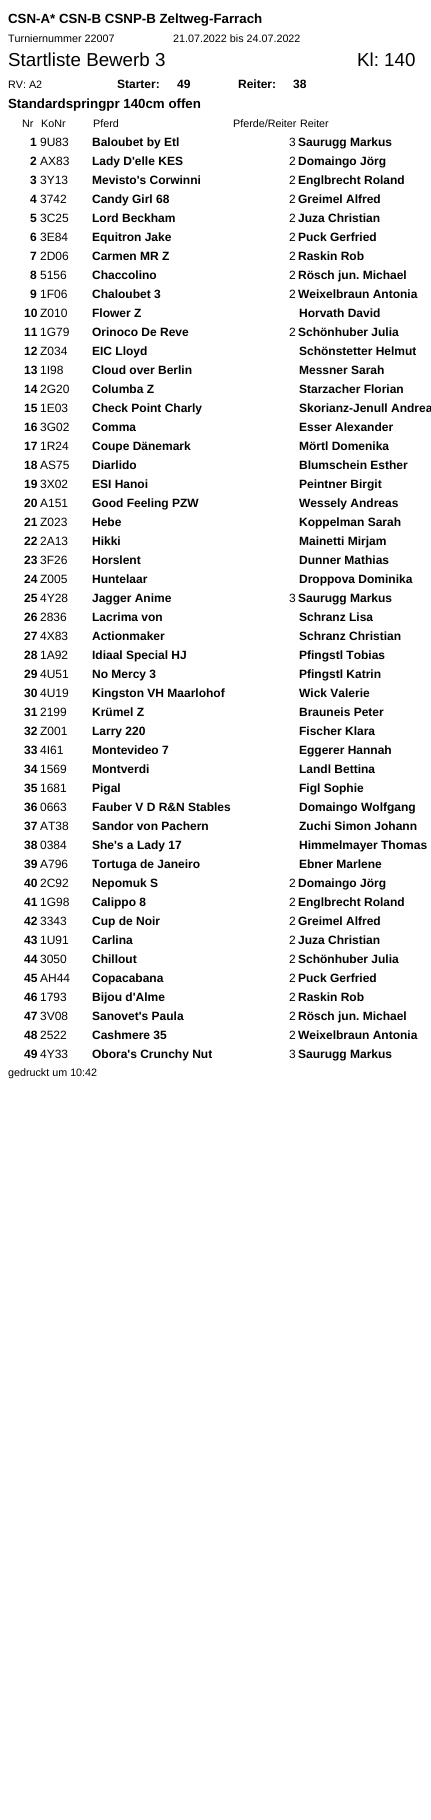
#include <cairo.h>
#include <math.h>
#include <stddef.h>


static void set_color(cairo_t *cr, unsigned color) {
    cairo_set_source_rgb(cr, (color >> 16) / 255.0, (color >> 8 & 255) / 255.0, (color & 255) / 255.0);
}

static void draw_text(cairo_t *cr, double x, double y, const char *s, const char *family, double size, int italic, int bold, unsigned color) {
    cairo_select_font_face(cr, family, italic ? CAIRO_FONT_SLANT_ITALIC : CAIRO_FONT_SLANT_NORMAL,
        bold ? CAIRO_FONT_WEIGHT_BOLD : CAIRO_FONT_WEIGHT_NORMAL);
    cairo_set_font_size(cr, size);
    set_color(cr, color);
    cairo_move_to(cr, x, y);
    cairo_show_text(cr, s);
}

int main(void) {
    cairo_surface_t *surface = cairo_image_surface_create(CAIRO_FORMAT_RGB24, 431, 1820);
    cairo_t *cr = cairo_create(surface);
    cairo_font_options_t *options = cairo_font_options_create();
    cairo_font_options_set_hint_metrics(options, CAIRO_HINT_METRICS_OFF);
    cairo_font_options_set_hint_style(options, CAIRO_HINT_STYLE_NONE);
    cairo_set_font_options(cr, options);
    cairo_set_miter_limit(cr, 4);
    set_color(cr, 0xFFFFFF);
    cairo_paint(cr);
    draw_text(cr, 8, 23, "CSN-A* CSN-B CSNP-B Zeltweg-Farrach", "Liberation Sans", 13.3, 0, 1, 0x000000);
    draw_text(cr, 8, 42, "Turniernummer 22007", "Liberation Sans", 10.75, 0, 0, 0x000000);
    draw_text(cr, 173, 42, "21.07.2022 bis 24.07.2022", "Liberation Sans", 10.75, 0, 0, 0x000000);
    draw_text(cr, 8, 66, "Startliste Bewerb 3", "Liberation Sans", 18.75, 0, 0, 0x000000);
    draw_text(cr, 357, 66, "Kl: 140", "Liberation Sans", 18.75, 0, 0, 0x000000);
    draw_text(cr, 8, 88, "RV: A2", "Liberation Sans", 10.75, 0, 0, 0x000000);
    draw_text(cr, 117, 88, "Starter:", "Liberation Sans", 12, 0, 1, 0x000000);
    draw_text(cr, 177, 88, "49", "Liberation Sans", 12, 0, 1, 0x000000);
    draw_text(cr, 238, 88, "Reiter:", "Liberation Sans", 12, 0, 1, 0x000000);
    draw_text(cr, 293, 88, "38", "Liberation Sans", 12, 0, 1, 0x000000);
    draw_text(cr, 8, 108, "Standardspringpr 140cm offen", "Liberation Sans", 13.3, 0, 1, 0x000000);
    draw_text(cr, 22, 127, "Nr", "Liberation Sans", 10.75, 0, 0, 0x000000);
    draw_text(cr, 41, 127, "KoNr", "Liberation Sans", 10.75, 0, 0, 0x000000);
    draw_text(cr, 93, 127, "Pferd", "Liberation Sans", 10.75, 0, 0, 0x000000);
    draw_text(cr, 233, 127, "Pferde/Reiter", "Liberation Sans", 10.75, 0, 0, 0x000000);
    draw_text(cr, 300, 127, "Reiter", "Liberation Sans", 10.75, 0, 0, 0x000000);
    draw_text(cr, 30, 146, "1", "Liberation Sans", 12, 0, 1, 0x000000);
    draw_text(cr, 40, 146, "9U83", "Liberation Sans", 12, 0, 0, 0x000000);
    draw_text(cr, 92, 146, "Baloubet by Etl", "Liberation Sans", 12, 0, 1, 0x000000);
    draw_text(cr, 289, 146, "3", "Liberation Sans", 12, 0, 0, 0x000000);
    draw_text(cr, 298, 146, "Saurugg Markus", "Liberation Sans", 12, 0, 1, 0x000000);
    draw_text(cr, 30, 165, "2", "Liberation Sans", 12, 0, 1, 0x000000);
    draw_text(cr, 40, 165, "AX83", "Liberation Sans", 12, 0, 0, 0x000000);
    draw_text(cr, 92, 165, "Lady D'elle KES", "Liberation Sans", 12, 0, 1, 0x000000);
    draw_text(cr, 289, 165, "2", "Liberation Sans", 12, 0, 0, 0x000000);
    draw_text(cr, 298, 165, "Domaingo Jörg", "Liberation Sans", 12, 0, 1, 0x000000);
    draw_text(cr, 30, 184, "3", "Liberation Sans", 12, 0, 1, 0x000000);
    draw_text(cr, 40, 184, "3Y13", "Liberation Sans", 12, 0, 0, 0x000000);
    draw_text(cr, 92, 184, "Mevisto's Corwinni", "Liberation Sans", 12, 0, 1, 0x000000);
    draw_text(cr, 289, 184, "2", "Liberation Sans", 12, 0, 0, 0x000000);
    draw_text(cr, 298, 184, "Englbrecht Roland", "Liberation Sans", 12, 0, 1, 0x000000);
    draw_text(cr, 30, 203, "4", "Liberation Sans", 12, 0, 1, 0x000000);
    draw_text(cr, 40, 203, "3742", "Liberation Sans", 12, 0, 0, 0x000000);
    draw_text(cr, 92, 203, "Candy Girl 68", "Liberation Sans", 12, 0, 1, 0x000000);
    draw_text(cr, 289, 203, "2", "Liberation Sans", 12, 0, 0, 0x000000);
    draw_text(cr, 298, 203, "Greimel Alfred", "Liberation Sans", 12, 0, 1, 0x000000);
    draw_text(cr, 30, 222, "5", "Liberation Sans", 12, 0, 1, 0x000000);
    draw_text(cr, 40, 222, "3C25", "Liberation Sans", 12, 0, 0, 0x000000);
    draw_text(cr, 92, 222, "Lord Beckham", "Liberation Sans", 12, 0, 1, 0x000000);
    draw_text(cr, 289, 222, "2", "Liberation Sans", 12, 0, 0, 0x000000);
    draw_text(cr, 298, 222, "Juza Christian", "Liberation Sans", 12, 0, 1, 0x000000);
    draw_text(cr, 30, 241, "6", "Liberation Sans", 12, 0, 1, 0x000000);
    draw_text(cr, 40, 241, "3E84", "Liberation Sans", 12, 0, 0, 0x000000);
    draw_text(cr, 92, 241, "Equitron Jake", "Liberation Sans", 12, 0, 1, 0x000000);
    draw_text(cr, 289, 241, "2", "Liberation Sans", 12, 0, 0, 0x000000);
    draw_text(cr, 298, 241, "Puck Gerfried", "Liberation Sans", 12, 0, 1, 0x000000);
    draw_text(cr, 30, 260, "7", "Liberation Sans", 12, 0, 1, 0x000000);
    draw_text(cr, 40, 260, "2D06", "Liberation Sans", 12, 0, 0, 0x000000);
    draw_text(cr, 92, 260, "Carmen MR Z", "Liberation Sans", 12, 0, 1, 0x000000);
    draw_text(cr, 289, 260, "2", "Liberation Sans", 12, 0, 0, 0x000000);
    draw_text(cr, 298, 260, "Raskin Rob", "Liberation Sans", 12, 0, 1, 0x000000);
    draw_text(cr, 30, 279, "8", "Liberation Sans", 12, 0, 1, 0x000000);
    draw_text(cr, 40, 279, "5156", "Liberation Sans", 12, 0, 0, 0x000000);
    draw_text(cr, 92, 279, "Chaccolino", "Liberation Sans", 12, 0, 1, 0x000000);
    draw_text(cr, 289, 279, "2", "Liberation Sans", 12, 0, 0, 0x000000);
    draw_text(cr, 298, 279, "Rösch jun. Michael", "Liberation Sans", 12, 0, 1, 0x000000);
    draw_text(cr, 30, 298, "9", "Liberation Sans", 12, 0, 1, 0x000000);
    draw_text(cr, 40, 298, "1F06", "Liberation Sans", 12, 0, 0, 0x000000);
    draw_text(cr, 92, 298, "Chaloubet 3", "Liberation Sans", 12, 0, 1, 0x000000);
    draw_text(cr, 289, 298, "2", "Liberation Sans", 12, 0, 0, 0x000000);
    draw_text(cr, 298, 298, "Weixelbraun Antonia", "Liberation Sans", 12, 0, 1, 0x000000);
    draw_text(cr, 24, 317, "10", "Liberation Sans", 12, 0, 1, 0x000000);
    draw_text(cr, 40, 317, "Z010", "Liberation Sans", 12, 0, 0, 0x000000);
    draw_text(cr, 92, 317, "Flower Z", "Liberation Sans", 12, 0, 1, 0x000000);
    draw_text(cr, 299, 317, "Horvath David", "Liberation Sans", 12, 0, 1, 0x000000);
    draw_text(cr, 24, 336, "11", "Liberation Sans", 12, 0, 1, 0x000000);
    draw_text(cr, 40, 336, "1G79", "Liberation Sans", 12, 0, 0, 0x000000);
    draw_text(cr, 92, 336, "Orinoco De Reve", "Liberation Sans", 12, 0, 1, 0x000000);
    draw_text(cr, 289, 336, "2", "Liberation Sans", 12, 0, 0, 0x000000);
    draw_text(cr, 298, 336, "Schönhuber Julia", "Liberation Sans", 12, 0, 1, 0x000000);
    draw_text(cr, 24, 355, "12", "Liberation Sans", 12, 0, 1, 0x000000);
    draw_text(cr, 40, 355, "Z034", "Liberation Sans", 12, 0, 0, 0x000000);
    draw_text(cr, 92, 355, "EIC Lloyd", "Liberation Sans", 12, 0, 1, 0x000000);
    draw_text(cr, 299, 355, "Schönstetter Helmut", "Liberation Sans", 12, 0, 1, 0x000000);
    draw_text(cr, 24, 374, "13", "Liberation Sans", 12, 0, 1, 0x000000);
    draw_text(cr, 40, 374, "1I98", "Liberation Sans", 12, 0, 0, 0x000000);
    draw_text(cr, 92, 374, "Cloud over Berlin", "Liberation Sans", 12, 0, 1, 0x000000);
    draw_text(cr, 299, 374, "Messner Sarah", "Liberation Sans", 12, 0, 1, 0x000000);
    draw_text(cr, 24, 393, "14", "Liberation Sans", 12, 0, 1, 0x000000);
    draw_text(cr, 40, 393, "2G20", "Liberation Sans", 12, 0, 0, 0x000000);
    draw_text(cr, 92, 393, "Columba Z", "Liberation Sans", 12, 0, 1, 0x000000);
    draw_text(cr, 299, 393, "Starzacher Florian", "Liberation Sans", 12, 0, 1, 0x000000);
    draw_text(cr, 24, 412, "15", "Liberation Sans", 12, 0, 1, 0x000000);
    draw_text(cr, 40, 412, "1E03", "Liberation Sans", 12, 0, 0, 0x000000);
    draw_text(cr, 92, 412, "Check Point Charly", "Liberation Sans", 12, 0, 1, 0x000000);
    draw_text(cr, 299, 412, "Skorianz-Jenull Andrea", "Liberation Sans", 12, 0, 1, 0x000000);
    draw_text(cr, 24, 431, "16", "Liberation Sans", 12, 0, 1, 0x000000);
    draw_text(cr, 40, 431, "3G02", "Liberation Sans", 12, 0, 0, 0x000000);
    draw_text(cr, 92, 431, "Comma", "Liberation Sans", 12, 0, 1, 0x000000);
    draw_text(cr, 299, 431, "Esser Alexander", "Liberation Sans", 12, 0, 1, 0x000000);
    draw_text(cr, 24, 450, "17", "Liberation Sans", 12, 0, 1, 0x000000);
    draw_text(cr, 40, 450, "1R24", "Liberation Sans", 12, 0, 0, 0x000000);
    draw_text(cr, 92, 450, "Coupe Dänemark", "Liberation Sans", 12, 0, 1, 0x000000);
    draw_text(cr, 299, 450, "Mörtl Domenika", "Liberation Sans", 12, 0, 1, 0x000000);
    draw_text(cr, 24, 469, "18", "Liberation Sans", 12, 0, 1, 0x000000);
    draw_text(cr, 40, 469, "AS75", "Liberation Sans", 12, 0, 0, 0x000000);
    draw_text(cr, 92, 469, "Diarlido", "Liberation Sans", 12, 0, 1, 0x000000);
    draw_text(cr, 299, 469, "Blumschein Esther", "Liberation Sans", 12, 0, 1, 0x000000);
    draw_text(cr, 24, 488, "19", "Liberation Sans", 12, 0, 1, 0x000000);
    draw_text(cr, 40, 488, "3X02", "Liberation Sans", 12, 0, 0, 0x000000);
    draw_text(cr, 92, 488, "ESI Hanoi", "Liberation Sans", 12, 0, 1, 0x000000);
    draw_text(cr, 299, 488, "Peintner Birgit", "Liberation Sans", 12, 0, 1, 0x000000);
    draw_text(cr, 24, 507, "20", "Liberation Sans", 12, 0, 1, 0x000000);
    draw_text(cr, 40, 507, "A151", "Liberation Sans", 12, 0, 0, 0x000000);
    draw_text(cr, 92, 507, "Good Feeling PZW", "Liberation Sans", 12, 0, 1, 0x000000);
    draw_text(cr, 299, 507, "Wessely Andreas", "Liberation Sans", 12, 0, 1, 0x000000);
    draw_text(cr, 24, 526, "21", "Liberation Sans", 12, 0, 1, 0x000000);
    draw_text(cr, 40, 526, "Z023", "Liberation Sans", 12, 0, 0, 0x000000);
    draw_text(cr, 92, 526, "Hebe", "Liberation Sans", 12, 0, 1, 0x000000);
    draw_text(cr, 299, 526, "Koppelman Sarah", "Liberation Sans", 12, 0, 1, 0x000000);
    draw_text(cr, 24, 545, "22", "Liberation Sans", 12, 0, 1, 0x000000);
    draw_text(cr, 40, 545, "2A13", "Liberation Sans", 12, 0, 0, 0x000000);
    draw_text(cr, 92, 545, "Hikki", "Liberation Sans", 12, 0, 1, 0x000000);
    draw_text(cr, 299, 545, "Mainetti Mirjam", "Liberation Sans", 12, 0, 1, 0x000000);
    draw_text(cr, 24, 564, "23", "Liberation Sans", 12, 0, 1, 0x000000);
    draw_text(cr, 40, 564, "3F26", "Liberation Sans", 12, 0, 0, 0x000000);
    draw_text(cr, 92, 564, "Horslent", "Liberation Sans", 12, 0, 1, 0x000000);
    draw_text(cr, 299, 564, "Dunner Mathias", "Liberation Sans", 12, 0, 1, 0x000000);
    draw_text(cr, 24, 583, "24", "Liberation Sans", 12, 0, 1, 0x000000);
    draw_text(cr, 40, 583, "Z005", "Liberation Sans", 12, 0, 0, 0x000000);
    draw_text(cr, 92, 583, "Huntelaar", "Liberation Sans", 12, 0, 1, 0x000000);
    draw_text(cr, 299, 583, "Droppova Dominika", "Liberation Sans", 12, 0, 1, 0x000000);
    draw_text(cr, 24, 602, "25", "Liberation Sans", 12, 0, 1, 0x000000);
    draw_text(cr, 40, 602, "4Y28", "Liberation Sans", 12, 0, 0, 0x000000);
    draw_text(cr, 92, 602, "Jagger Anime", "Liberation Sans", 12, 0, 1, 0x000000);
    draw_text(cr, 289, 602, "3", "Liberation Sans", 12, 0, 0, 0x000000);
    draw_text(cr, 298, 602, "Saurugg Markus", "Liberation Sans", 12, 0, 1, 0x000000);
    draw_text(cr, 24, 621, "26", "Liberation Sans", 12, 0, 1, 0x000000);
    draw_text(cr, 40, 621, "2836", "Liberation Sans", 12, 0, 0, 0x000000);
    draw_text(cr, 92, 621, "Lacrima von", "Liberation Sans", 12, 0, 1, 0x000000);
    draw_text(cr, 299, 621, "Schranz Lisa", "Liberation Sans", 12, 0, 1, 0x000000);
    draw_text(cr, 24, 640, "27", "Liberation Sans", 12, 0, 1, 0x000000);
    draw_text(cr, 40, 640, "4X83", "Liberation Sans", 12, 0, 0, 0x000000);
    draw_text(cr, 92, 640, "Actionmaker", "Liberation Sans", 12, 0, 1, 0x000000);
    draw_text(cr, 299, 640, "Schranz Christian", "Liberation Sans", 12, 0, 1, 0x000000);
    draw_text(cr, 24, 659, "28", "Liberation Sans", 12, 0, 1, 0x000000);
    draw_text(cr, 40, 659, "1A92", "Liberation Sans", 12, 0, 0, 0x000000);
    draw_text(cr, 92, 659, "Idiaal Special HJ", "Liberation Sans", 12, 0, 1, 0x000000);
    draw_text(cr, 299, 659, "Pfingstl Tobias", "Liberation Sans", 12, 0, 1, 0x000000);
    draw_text(cr, 24, 678, "29", "Liberation Sans", 12, 0, 1, 0x000000);
    draw_text(cr, 40, 678, "4U51", "Liberation Sans", 12, 0, 0, 0x000000);
    draw_text(cr, 92, 678, "No Mercy 3", "Liberation Sans", 12, 0, 1, 0x000000);
    draw_text(cr, 299, 678, "Pfingstl Katrin", "Liberation Sans", 12, 0, 1, 0x000000);
    draw_text(cr, 24, 697, "30", "Liberation Sans", 12, 0, 1, 0x000000);
    draw_text(cr, 40, 697, "4U19", "Liberation Sans", 12, 0, 0, 0x000000);
    draw_text(cr, 92, 697, "Kingston VH Maarlohof", "Liberation Sans", 12, 0, 1, 0x000000);
    draw_text(cr, 299, 697, "Wick Valerie", "Liberation Sans", 12, 0, 1, 0x000000);
    draw_text(cr, 24, 716, "31", "Liberation Sans", 12, 0, 1, 0x000000);
    draw_text(cr, 40, 716, "2199", "Liberation Sans", 12, 0, 0, 0x000000);
    draw_text(cr, 92, 716, "Krümel Z", "Liberation Sans", 12, 0, 1, 0x000000);
    draw_text(cr, 299, 716, "Brauneis Peter", "Liberation Sans", 12, 0, 1, 0x000000);
    draw_text(cr, 24, 735, "32", "Liberation Sans", 12, 0, 1, 0x000000);
    draw_text(cr, 40, 735, "Z001", "Liberation Sans", 12, 0, 0, 0x000000);
    draw_text(cr, 92, 735, "Larry 220", "Liberation Sans", 12, 0, 1, 0x000000);
    draw_text(cr, 299, 735, "Fischer Klara", "Liberation Sans", 12, 0, 1, 0x000000);
    draw_text(cr, 24, 754, "33", "Liberation Sans", 12, 0, 1, 0x000000);
    draw_text(cr, 40, 754, "4I61", "Liberation Sans", 12, 0, 0, 0x000000);
    draw_text(cr, 92, 754, "Montevideo 7", "Liberation Sans", 12, 0, 1, 0x000000);
    draw_text(cr, 299, 754, "Eggerer Hannah", "Liberation Sans", 12, 0, 1, 0x000000);
    draw_text(cr, 24, 773, "34", "Liberation Sans", 12, 0, 1, 0x000000);
    draw_text(cr, 40, 773, "1569", "Liberation Sans", 12, 0, 0, 0x000000);
    draw_text(cr, 92, 773, "Montverdi", "Liberation Sans", 12, 0, 1, 0x000000);
    draw_text(cr, 299, 773, "Landl Bettina", "Liberation Sans", 12, 0, 1, 0x000000);
    draw_text(cr, 24, 792, "35", "Liberation Sans", 12, 0, 1, 0x000000);
    draw_text(cr, 40, 792, "1681", "Liberation Sans", 12, 0, 0, 0x000000);
    draw_text(cr, 92, 792, "Pigal", "Liberation Sans", 12, 0, 1, 0x000000);
    draw_text(cr, 299, 792, "Figl Sophie", "Liberation Sans", 12, 0, 1, 0x000000);
    draw_text(cr, 24, 811, "36", "Liberation Sans", 12, 0, 1, 0x000000);
    draw_text(cr, 40, 811, "0663", "Liberation Sans", 12, 0, 0, 0x000000);
    draw_text(cr, 92, 811, "Fauber V D R&N Stables", "Liberation Sans", 12, 0, 1, 0x000000);
    draw_text(cr, 299, 811, "Domaingo Wolfgang", "Liberation Sans", 12, 0, 1, 0x000000);
    draw_text(cr, 24, 830, "37", "Liberation Sans", 12, 0, 1, 0x000000);
    draw_text(cr, 40, 830, "AT38", "Liberation Sans", 12, 0, 0, 0x000000);
    draw_text(cr, 92, 830, "Sandor von Pachern", "Liberation Sans", 12, 0, 1, 0x000000);
    draw_text(cr, 299, 830, "Zuchi Simon Johann", "Liberation Sans", 12, 0, 1, 0x000000);
    draw_text(cr, 24, 849, "38", "Liberation Sans", 12, 0, 1, 0x000000);
    draw_text(cr, 40, 849, "0384", "Liberation Sans", 12, 0, 0, 0x000000);
    draw_text(cr, 92, 849, "She's a Lady 17", "Liberation Sans", 12, 0, 1, 0x000000);
    draw_text(cr, 299, 849, "Himmelmayer Thomas", "Liberation Sans", 12, 0, 1, 0x000000);
    draw_text(cr, 24, 868, "39", "Liberation Sans", 12, 0, 1, 0x000000);
    draw_text(cr, 40, 868, "A796", "Liberation Sans", 12, 0, 0, 0x000000);
    draw_text(cr, 92, 868, "Tortuga de Janeiro", "Liberation Sans", 12, 0, 1, 0x000000);
    draw_text(cr, 299, 868, "Ebner Marlene", "Liberation Sans", 12, 0, 1, 0x000000);
    draw_text(cr, 24, 887, "40", "Liberation Sans", 12, 0, 1, 0x000000);
    draw_text(cr, 40, 887, "2C92", "Liberation Sans", 12, 0, 0, 0x000000);
    draw_text(cr, 92, 887, "Nepomuk S", "Liberation Sans", 12, 0, 1, 0x000000);
    draw_text(cr, 289, 887, "2", "Liberation Sans", 12, 0, 0, 0x000000);
    draw_text(cr, 298, 887, "Domaingo Jörg", "Liberation Sans", 12, 0, 1, 0x000000);
    draw_text(cr, 24, 906, "41", "Liberation Sans", 12, 0, 1, 0x000000);
    draw_text(cr, 40, 906, "1G98", "Liberation Sans", 12, 0, 0, 0x000000);
    draw_text(cr, 92, 906, "Calippo 8", "Liberation Sans", 12, 0, 1, 0x000000);
    draw_text(cr, 289, 906, "2", "Liberation Sans", 12, 0, 0, 0x000000);
    draw_text(cr, 298, 906, "Englbrecht Roland", "Liberation Sans", 12, 0, 1, 0x000000);
    draw_text(cr, 24, 925, "42", "Liberation Sans", 12, 0, 1, 0x000000);
    draw_text(cr, 40, 925, "3343", "Liberation Sans", 12, 0, 0, 0x000000);
    draw_text(cr, 92, 925, "Cup de Noir", "Liberation Sans", 12, 0, 1, 0x000000);
    draw_text(cr, 289, 925, "2", "Liberation Sans", 12, 0, 0, 0x000000);
    draw_text(cr, 298, 925, "Greimel Alfred", "Liberation Sans", 12, 0, 1, 0x000000);
    draw_text(cr, 24, 944, "43", "Liberation Sans", 12, 0, 1, 0x000000);
    draw_text(cr, 40, 944, "1U91", "Liberation Sans", 12, 0, 0, 0x000000);
    draw_text(cr, 92, 944, "Carlina", "Liberation Sans", 12, 0, 1, 0x000000);
    draw_text(cr, 289, 944, "2", "Liberation Sans", 12, 0, 0, 0x000000);
    draw_text(cr, 298, 944, "Juza Christian", "Liberation Sans", 12, 0, 1, 0x000000);
    draw_text(cr, 24, 963, "44", "Liberation Sans", 12, 0, 1, 0x000000);
    draw_text(cr, 40, 963, "3050", "Liberation Sans", 12, 0, 0, 0x000000);
    draw_text(cr, 92, 963, "Chillout", "Liberation Sans", 12, 0, 1, 0x000000);
    draw_text(cr, 289, 963, "2", "Liberation Sans", 12, 0, 0, 0x000000);
    draw_text(cr, 298, 963, "Schönhuber Julia", "Liberation Sans", 12, 0, 1, 0x000000);
    draw_text(cr, 24, 982, "45", "Liberation Sans", 12, 0, 1, 0x000000);
    draw_text(cr, 40, 982, "AH44", "Liberation Sans", 12, 0, 0, 0x000000);
    draw_text(cr, 92, 982, "Copacabana", "Liberation Sans", 12, 0, 1, 0x000000);
    draw_text(cr, 289, 982, "2", "Liberation Sans", 12, 0, 0, 0x000000);
    draw_text(cr, 298, 982, "Puck Gerfried", "Liberation Sans", 12, 0, 1, 0x000000);
    draw_text(cr, 24, 1001, "46", "Liberation Sans", 12, 0, 1, 0x000000);
    draw_text(cr, 40, 1001, "1793", "Liberation Sans", 12, 0, 0, 0x000000);
    draw_text(cr, 92, 1001, "Bijou d'Alme", "Liberation Sans", 12, 0, 1, 0x000000);
    draw_text(cr, 289, 1001, "2", "Liberation Sans", 12, 0, 0, 0x000000);
    draw_text(cr, 298, 1001, "Raskin Rob", "Liberation Sans", 12, 0, 1, 0x000000);
    draw_text(cr, 24, 1020, "47", "Liberation Sans", 12, 0, 1, 0x000000);
    draw_text(cr, 40, 1020, "3V08", "Liberation Sans", 12, 0, 0, 0x000000);
    draw_text(cr, 92, 1020, "Sanovet's Paula", "Liberation Sans", 12, 0, 1, 0x000000);
    draw_text(cr, 289, 1020, "2", "Liberation Sans", 12, 0, 0, 0x000000);
    draw_text(cr, 298, 1020, "Rösch jun. Michael", "Liberation Sans", 12, 0, 1, 0x000000);
    draw_text(cr, 24, 1039, "48", "Liberation Sans", 12, 0, 1, 0x000000);
    draw_text(cr, 40, 1039, "2522", "Liberation Sans", 12, 0, 0, 0x000000);
    draw_text(cr, 92, 1039, "Cashmere 35", "Liberation Sans", 12, 0, 1, 0x000000);
    draw_text(cr, 289, 1039, "2", "Liberation Sans", 12, 0, 0, 0x000000);
    draw_text(cr, 298, 1039, "Weixelbraun Antonia", "Liberation Sans", 12, 0, 1, 0x000000);
    draw_text(cr, 24, 1058, "49", "Liberation Sans", 12, 0, 1, 0x000000);
    draw_text(cr, 40, 1058, "4Y33", "Liberation Sans", 12, 0, 0, 0x000000);
    draw_text(cr, 92, 1058, "Obora's Crunchy Nut", "Liberation Sans", 12, 0, 1, 0x000000);
    draw_text(cr, 289, 1058, "3", "Liberation Sans", 12, 0, 0, 0x000000);
    draw_text(cr, 298, 1058, "Saurugg Markus", "Liberation Sans", 12, 0, 1, 0x000000);
    draw_text(cr, 8, 1076, "gedruckt um 10:42", "Liberation Sans", 10.75, 0, 0, 0x000000);
    cairo_surface_write_to_png(surface, "output.png");
    cairo_font_options_destroy(options);
    cairo_destroy(cr);
    cairo_surface_destroy(surface);
    return 0;
}
